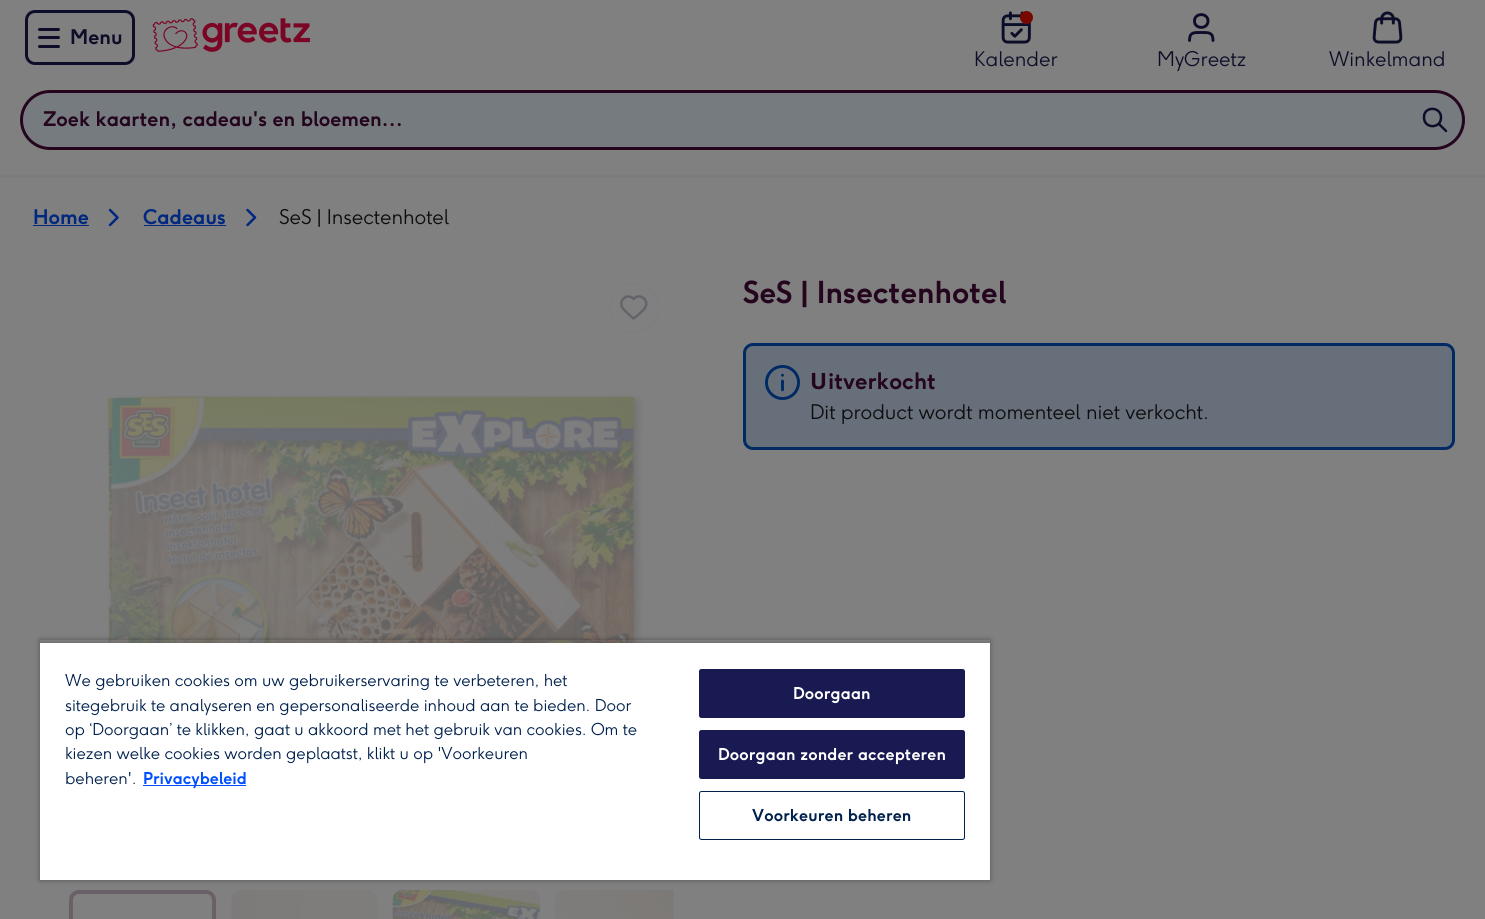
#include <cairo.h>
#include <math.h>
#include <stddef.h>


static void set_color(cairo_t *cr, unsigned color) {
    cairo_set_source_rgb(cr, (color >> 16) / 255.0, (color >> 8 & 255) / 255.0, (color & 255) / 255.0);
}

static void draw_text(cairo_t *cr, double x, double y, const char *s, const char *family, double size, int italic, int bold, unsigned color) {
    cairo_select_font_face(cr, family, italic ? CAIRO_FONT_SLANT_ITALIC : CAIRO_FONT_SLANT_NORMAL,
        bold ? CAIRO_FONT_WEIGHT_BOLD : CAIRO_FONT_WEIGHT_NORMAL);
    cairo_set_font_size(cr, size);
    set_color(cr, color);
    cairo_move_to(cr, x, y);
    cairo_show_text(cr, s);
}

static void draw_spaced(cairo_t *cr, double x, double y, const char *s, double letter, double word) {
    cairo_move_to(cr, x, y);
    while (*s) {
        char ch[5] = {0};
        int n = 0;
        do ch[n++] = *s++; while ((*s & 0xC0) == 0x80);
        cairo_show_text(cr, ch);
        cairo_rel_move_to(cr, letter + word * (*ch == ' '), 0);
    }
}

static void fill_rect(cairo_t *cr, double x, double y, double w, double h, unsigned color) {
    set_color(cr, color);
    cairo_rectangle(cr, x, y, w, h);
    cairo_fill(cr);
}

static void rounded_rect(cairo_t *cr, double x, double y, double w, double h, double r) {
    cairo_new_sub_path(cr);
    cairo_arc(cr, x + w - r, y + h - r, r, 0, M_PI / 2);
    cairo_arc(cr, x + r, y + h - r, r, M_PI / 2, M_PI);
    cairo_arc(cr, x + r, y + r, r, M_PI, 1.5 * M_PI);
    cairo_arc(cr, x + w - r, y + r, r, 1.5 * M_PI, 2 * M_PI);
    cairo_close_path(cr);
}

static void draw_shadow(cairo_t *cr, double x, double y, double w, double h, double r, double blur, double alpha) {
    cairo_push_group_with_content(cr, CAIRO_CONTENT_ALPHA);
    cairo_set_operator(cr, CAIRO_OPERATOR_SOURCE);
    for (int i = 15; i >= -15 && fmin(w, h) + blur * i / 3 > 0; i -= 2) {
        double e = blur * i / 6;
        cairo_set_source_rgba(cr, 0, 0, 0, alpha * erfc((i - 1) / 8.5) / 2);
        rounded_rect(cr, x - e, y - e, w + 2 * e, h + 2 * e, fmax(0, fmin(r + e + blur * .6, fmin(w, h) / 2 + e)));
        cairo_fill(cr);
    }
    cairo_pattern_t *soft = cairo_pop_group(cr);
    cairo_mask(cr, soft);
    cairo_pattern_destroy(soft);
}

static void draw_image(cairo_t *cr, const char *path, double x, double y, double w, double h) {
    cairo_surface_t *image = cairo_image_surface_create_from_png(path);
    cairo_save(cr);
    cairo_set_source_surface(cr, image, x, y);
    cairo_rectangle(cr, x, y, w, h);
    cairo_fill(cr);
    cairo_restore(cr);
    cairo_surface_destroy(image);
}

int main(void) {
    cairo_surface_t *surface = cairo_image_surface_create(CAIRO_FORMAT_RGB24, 1485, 919);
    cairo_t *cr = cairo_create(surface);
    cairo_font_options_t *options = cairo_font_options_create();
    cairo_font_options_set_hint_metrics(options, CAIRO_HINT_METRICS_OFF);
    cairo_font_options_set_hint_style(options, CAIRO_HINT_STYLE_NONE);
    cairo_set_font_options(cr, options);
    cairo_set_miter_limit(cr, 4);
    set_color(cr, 0x808080);
    cairo_paint(cr);
    fill_rect(cr, 0, 175, 1485, 3, 0x7C7C7D);
    rounded_rect(cr, 26.5, 11.5, 107, 52, 8.5);
    set_color(cr, 0x0D0D29);
    cairo_set_line_width(cr, 3);
    cairo_stroke(cr);
    rounded_rect(cr, 38, 28, 22, 3, 1.5);
    cairo_fill(cr);
    rounded_rect(cr, 38, 36, 22, 3, 1.5);
    cairo_fill(cr);
    rounded_rect(cr, 38, 45, 22, 3, 1.5);
    cairo_fill(cr);
    draw_text(cr, 70, 44, "Menu", "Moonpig", 20, 0, 1, 0x0D0D29);
    draw_image(cr, "assets/img1.png", 152, 18, 158, 34);
    draw_image(cr, "assets/img2.png", 1001, 11, 30, 33);
    set_color(cr, 0x760800);
    cairo_arc(cr, 1026.5, 17.5, 6.5, 0, 2 * M_PI);
    cairo_fill(cr);
    draw_text(cr, 974, 66, "Kalender", "Moonpig Light", 20, 0, 0, 0x0D0D29);
    cairo_new_path(cr);
    cairo_move_to(cr, 1213, 40.5);
    cairo_curve_to(cr, 1213, 32, 1208.5, 32.5, 1201, 32.5);
    cairo_curve_to(cr, 1194, 32.5, 1189.5, 32, 1189.5, 40.5);
    cairo_move_to(cr, 1208, 21);
    cairo_curve_to(cr, 1208, 29.5, 1194.5, 29.5, 1194.5, 21);
    cairo_curve_to(cr, 1194.5, 12.5, 1208, 12.5, 1208, 21);
    cairo_set_line_width(cr, 2.9);
    cairo_set_line_cap(cr, CAIRO_LINE_CAP_ROUND);
    cairo_set_line_join(cr, CAIRO_LINE_JOIN_ROUND);
    cairo_stroke(cr);
    draw_text(cr, 1157, 66, "MyGreetz", "Moonpig Light", 20, 0, 0, 0x0D0D29);
    draw_image(cr, "assets/img3.png", 1372, 11, 31, 33);
    draw_text(cr, 1329, 66, "Winkelmand", "Moonpig Light", 20, 0, 0, 0x0D0D29);
    set_color(cr, 0x767B7F);
    rounded_rect(cr, 21.5, 91.5, 1442, 57, 28.5);
    cairo_fill_preserve(cr);
    set_color(cr, 0x24051D);
    cairo_set_line_width(cr, 3);
    cairo_set_line_cap(cr, CAIRO_LINE_CAP_BUTT);
    cairo_set_line_join(cr, CAIRO_LINE_JOIN_MITER);
    cairo_stroke(cr);
    draw_text(cr, 43, 126, "Zoek kaarten, cadeau's en bloemen…", "Moonpig", 20, 0, 1, 0x24051D);
    cairo_new_path(cr);
    cairo_move_to(cr, 1446, 131);
    cairo_line_to(cr, 1439, 124);
    cairo_move_to(cr, 1441, 117.5);
    cairo_curve_to(cr, 1441, 129, 1424, 129, 1424, 117.5);
    cairo_curve_to(cr, 1423.5, 106, 1441, 106, 1441, 117.5);
    set_color(cr, 0x0D0D29);
    cairo_set_line_width(cr, 2.5);
    cairo_set_line_cap(cr, CAIRO_LINE_CAP_ROUND);
    cairo_set_line_join(cr, CAIRO_LINE_JOIN_ROUND);
    cairo_stroke(cr);
    draw_text(cr, 33, 224, "Home", "Moonpig", 20, 0, 1, 0x002880);
    fill_rect(cr, 33, 225, 56, 1, 0x002880);
    cairo_new_path(cr);
    cairo_move_to(cr, 110, 225);
    cairo_line_to(cr, 117.5, 217.5);
    cairo_line_to(cr, 110, 210);
    cairo_stroke(cr);
    draw_text(cr, 143, 224, "Cadeaus", "Moonpig", 20, 0, 1, 0x002880);
    fill_rect(cr, 144, 225, 82, 1, 0x002880);
    cairo_new_path(cr);
    cairo_move_to(cr, 247.5, 225);
    cairo_line_to(cr, 255, 217.5);
    cairo_line_to(cr, 247.5, 210);
    cairo_stroke(cr);
    draw_text(cr, 279, 224, "SeS | Insectenhotel", "Moonpig Light", 20, 0, 0, 0x0D0D0D);
    cairo_new_path(cr);
    cairo_arc(cr, 634, 308, 24.5, 0, 2 * M_PI);
    set_color(cr, 0x7D7D7D);
    cairo_set_line_width(cr, 1);
    cairo_set_line_cap(cr, CAIRO_LINE_CAP_BUTT);
    cairo_set_line_join(cr, CAIRO_LINE_JOIN_MITER);
    cairo_stroke(cr);
    cairo_new_path(cr);
    cairo_move_to(cr, 633.5, 299);
    cairo_curve_to(cr, 628, 292.5, 618.5, 299.5, 622, 307);
    cairo_curve_to(cr, 623.5, 310, 627, 312.5, 629.5, 315);
    cairo_line_to(cr, 633.5, 318.5);
    cairo_line_to(cr, 638, 315);
    cairo_curve_to(cr, 640.5, 312.5, 644, 310, 645.5, 307);
    cairo_curve_to(cr, 649, 299.5, 639.5, 292.5, 633.5, 299);
    set_color(cr, 0x63636A);
    cairo_set_line_width(cr, 2.5);
    cairo_set_line_cap(cr, CAIRO_LINE_CAP_ROUND);
    cairo_set_line_join(cr, CAIRO_LINE_JOIN_ROUND);
    cairo_stroke(cr);
    draw_image(cr, "assets/img4.png", 107, 395, 537, 248);
    rounded_rect(cr, 71, 892, 143, 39, 8);
    set_color(cr, 0x696167);
    cairo_set_line_width(cr, 4);
    cairo_set_line_cap(cr, CAIRO_LINE_CAP_BUTT);
    cairo_set_line_join(cr, CAIRO_LINE_JOIN_MITER);
    cairo_stroke(cr);
    draw_image(cr, "assets/img5.png", 231, 890, 147, 29);
    draw_image(cr, "assets/img6.png", 392, 890, 148, 29);
    draw_image(cr, "assets/img7.png", 555, 890, 119, 29);
    draw_text(cr, 743, 303, "SeS | Insectenhotel", "Moonpig", 30, 0, 1, 0x24051D);
    set_color(cr, 0x666F7A);
    rounded_rect(cr, 744.5, 344.5, 709, 104, 8.5);
    cairo_fill_preserve(cr);
    set_color(cr, 0x002A64);
    cairo_set_line_width(cr, 3);
    cairo_stroke(cr);
    draw_image(cr, "assets/img8.png", 765, 365, 35, 35);
    draw_text(cr, 810, 389, "U", "Noto Sans", 22.5, 0, 1, 0x24051D);
    draw_text(cr, 828, 389, "itverkocht", "Moonpig", 22.5, 0, 1, 0x24051D);
    draw_text(cr, 810, 419, "Dit product wordt momenteel niet verkocht.", "Moonpig Light", 20, 0, 0, 0x0D0D0D);
    cairo_save(cr);
    cairo_set_fill_rule(cr, CAIRO_FILL_RULE_EVEN_ODD);
    cairo_new_path(cr);
    cairo_move_to(cr, 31, 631);
    cairo_line_to(cr, 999, 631);
    cairo_line_to(cr, 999, 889);
    cairo_line_to(cr, 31, 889);
    cairo_close_path(cr);
    cairo_move_to(cr, 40, 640);
    cairo_line_to(cr, 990, 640);
    cairo_line_to(cr, 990, 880);
    cairo_line_to(cr, 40, 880);
    cairo_close_path(cr);
    cairo_clip(cr);
    set_color(cr, 0x000000);
    draw_shadow(cr, 40, 640, 950, 240, 0, 2.5, 0.35);
    cairo_restore(cr);
    cairo_save(cr);
    cairo_rectangle(cr, 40, 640, 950, 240);
    cairo_clip(cr);
    set_color(cr, 0x000000);
    draw_shadow(cr, 40, 643, 950, 237, 0, 2.5, 0.2);
    cairo_restore(cr);
    fill_rect(cr, 40, 643, 950, 237, 0xFFFFFF);
    draw_text(cr, 65, 686, "We gebruiken cookies om uw gebruikerservaring te verbeteren, het", "Moonpig Light", 16.25, 0, 0, 0x00204D);
    draw_text(cr, 65, 711, "sitegebruik te analyseren en gepersonaliseerde inhoud aan te bieden. Door", "Moonpig Light", 16.25, 0, 0, 0x00204D);
    draw_text(cr, 65, 735, "op ‘Doorgaan’ te klikken, gaat u akkoord met het gebruik van cookies. Om te", "Moonpig Light", 16.25, 0, 0, 0x00204D);
    draw_text(cr, 65, 759, "kiezen welke cookies worden geplaatst, klikt u op 'Voorkeuren", "Moonpig Light", 16.25, 0, 0, 0x00204D);
    draw_text(cr, 65, 784, "beheren'.", "Moonpig Light", 16.25, 0, 0, 0x00204D);
    fill_rect(cr, 143, 785, 103, 1, 0x0050FF);
    draw_text(cr, 143, 784, "Privacybeleid", "Moonpig", 16.25, 0, 1, 0x0050FF);
    set_color(cr, 0x191A51);
    rounded_rect(cr, 699.5, 669.5, 265, 48, 2);
    cairo_fill_preserve(cr);
    cairo_set_line_width(cr, 1);
    cairo_stroke(cr);
    set_color(cr, 0xFFFFFF);
    draw_spaced(cr, 793, 699, "Doorgaan", 0.15, 0);
    set_color(cr, 0x191A51);
    rounded_rect(cr, 699.5, 730.5, 265, 48, 2);
    cairo_fill_preserve(cr);
    cairo_stroke(cr);
    set_color(cr, 0xFFFFFF);
    draw_spaced(cr, 718, 760, "Doorgaan zonder accepteren", 0.15, 0);
    rounded_rect(cr, 699.5, 791.5, 265, 48, 2);
    set_color(cr, 0x00204D);
    cairo_stroke(cr);
    draw_spaced(cr, 752, 821, "Voorkeuren beheren", 0.15, 0);
    cairo_surface_write_to_png(surface, "output.png");
    cairo_font_options_destroy(options);
    cairo_destroy(cr);
    cairo_surface_destroy(surface);
    return 0;
}
